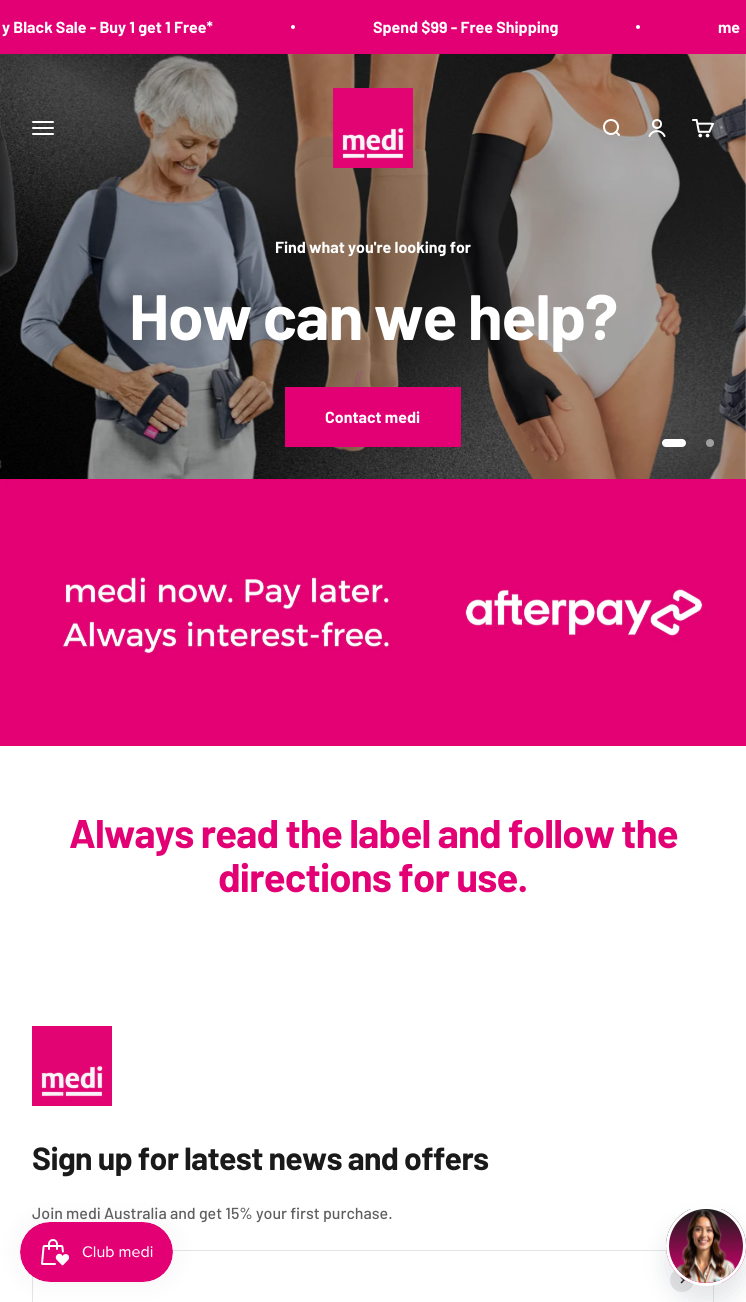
#include <cairo.h>
#include <math.h>
#include <stddef.h>


static void set_color(cairo_t *cr, unsigned color) {
    cairo_set_source_rgb(cr, (color >> 16) / 255.0, (color >> 8 & 255) / 255.0, (color & 255) / 255.0);
}

static void draw_text(cairo_t *cr, double x, double y, const char *s, const char *family, double size, int italic, int bold, unsigned color) {
    cairo_select_font_face(cr, family, italic ? CAIRO_FONT_SLANT_ITALIC : CAIRO_FONT_SLANT_NORMAL,
        bold ? CAIRO_FONT_WEIGHT_BOLD : CAIRO_FONT_WEIGHT_NORMAL);
    cairo_set_font_size(cr, size);
    set_color(cr, color);
    cairo_move_to(cr, x, y);
    cairo_show_text(cr, s);
}

static void draw_spaced(cairo_t *cr, double x, double y, const char *s, double letter, double word) {
    cairo_move_to(cr, x, y);
    while (*s) {
        char ch[5] = {0};
        int n = 0;
        do ch[n++] = *s++; while ((*s & 0xC0) == 0x80);
        cairo_show_text(cr, ch);
        cairo_rel_move_to(cr, letter + word * (*ch == ' '), 0);
    }
}

static void fill_rect(cairo_t *cr, double x, double y, double w, double h, unsigned color) {
    set_color(cr, color);
    cairo_rectangle(cr, x, y, w, h);
    cairo_fill(cr);
}

static void rounded_rect(cairo_t *cr, double x, double y, double w, double h, double r) {
    cairo_new_sub_path(cr);
    cairo_arc(cr, x + w - r, y + h - r, r, 0, M_PI / 2);
    cairo_arc(cr, x + r, y + h - r, r, M_PI / 2, M_PI);
    cairo_arc(cr, x + r, y + r, r, M_PI, 1.5 * M_PI);
    cairo_arc(cr, x + w - r, y + r, r, 1.5 * M_PI, 2 * M_PI);
    cairo_close_path(cr);
}

static void draw_shadow(cairo_t *cr, double x, double y, double w, double h, double r, double blur, double alpha) {
    cairo_push_group_with_content(cr, CAIRO_CONTENT_ALPHA);
    cairo_set_operator(cr, CAIRO_OPERATOR_SOURCE);
    for (int i = 15; i >= -15 && fmin(w, h) + blur * i / 3 > 0; i -= 2) {
        double e = blur * i / 6;
        cairo_set_source_rgba(cr, 0, 0, 0, alpha * erfc((i - 1) / 8.5) / 2);
        rounded_rect(cr, x - e, y - e, w + 2 * e, h + 2 * e, fmax(0, fmin(r + e + blur * .6, fmin(w, h) / 2 + e)));
        cairo_fill(cr);
    }
    cairo_pattern_t *soft = cairo_pop_group(cr);
    cairo_mask(cr, soft);
    cairo_pattern_destroy(soft);
}

static void draw_image(cairo_t *cr, const char *path, double x, double y, double w, double h) {
    cairo_surface_t *image = cairo_image_surface_create_from_png(path);
    cairo_save(cr);
    cairo_set_source_surface(cr, image, x, y);
    cairo_rectangle(cr, x, y, w, h);
    cairo_fill(cr);
    cairo_restore(cr);
    cairo_surface_destroy(image);
}

int main(void) {
    cairo_surface_t *surface = cairo_image_surface_create(CAIRO_FORMAT_RGB24, 746, 1302);
    cairo_t *cr = cairo_create(surface);
    cairo_font_options_t *options = cairo_font_options_create();
    cairo_font_options_set_hint_metrics(options, CAIRO_HINT_METRICS_OFF);
    cairo_font_options_set_hint_style(options, CAIRO_HINT_STYLE_NONE);
    cairo_set_font_options(cr, options);
    cairo_set_miter_limit(cr, 4);
    cairo_pattern_t *gradient;
    set_color(cr, 0xFFFFFF);
    cairo_paint(cr);
    fill_rect(cr, 0, 0, 746, 54, 0xE20074);
    draw_text(cr, 2, 33, "y Black Sale - Buy 1 get 1 Free*", "Barlow", 16, 0, 1, 0xFFFFFF);
    cairo_new_path(cr);
    cairo_arc(cr, 293, 27, 2, 0, 2 * M_PI);
    cairo_fill(cr);
    draw_text(cr, 373, 33, "Spend $99 - Free Shipping", "Barlow", 16, 0, 1, 0xFFFFFF);
    cairo_new_path(cr);
    cairo_arc(cr, 638, 27, 2, 0, 2 * M_PI);
    cairo_fill(cr);
    draw_text(cr, 718, 33, "me", "Barlow", 16, 0, 1, 0xFFFFFF);
    draw_image(cr, "assets/img5.png", 0, 54, 746, 425);
    draw_image(cr, "assets/img1.png", 333, 88, 80, 80);
    draw_image(cr, "assets/img2.png", 603, 119, 17, 17);
    cairo_arc(cr, 657, 124, 4, 0, 2 * M_PI);
    cairo_stroke(cr);
    cairo_new_path(cr);
    cairo_move_to(cr, 649.5, 136);
    cairo_curve_to(cr, 652.5, 129.5, 661.5, 129.5, 664.5, 136);
    cairo_set_line_cap(cr, CAIRO_LINE_CAP_ROUND);
    cairo_stroke(cr);
    draw_image(cr, "assets/img3.png", 692, 119, 22, 19);
    draw_text(cr, 711, 123, "0", "Barlow", 9, 0, 1, 0x424248);
    draw_image(cr, "assets/img4.png", 32, 121, 22, 14);
    draw_text(cr, 275, 253, "Find what you're looking for", "Barlow", 16, 0, 1, 0xFFFFFF);
    cairo_set_font_size(cr, 64);
    draw_spaced(cr, 129, 340, "How can we help?", -1.25, 0);
    fill_rect(cr, 285, 387, 176, 60, 0xE20074);
    draw_text(cr, 325, 423, "Contact medi", "Barlow", 16, 0, 1, 0xFFFFFF);
    rounded_rect(cr, 662, 439, 24, 8, 4);
    cairo_fill(cr);
    cairo_set_source_rgba(cr, 1, 1, 1, 0.5);
    cairo_arc(cr, 710, 443, 4, 0, 2 * M_PI);
    cairo_fill(cr);
    draw_image(cr, "assets/img6.png", 0, 479, 746, 267);
    cairo_set_font_size(cr, 40);
    set_color(cr, 0xE20074);
    draw_spaced(cr, 69, 848, "Always read the label and follow the", -0.8, 0);
    draw_spaced(cr, 218, 892, "directions for use.", -0.8, 0);
    draw_image(cr, "assets/img1.png", 32, 1026, 80, 80);
    cairo_set_font_size(cr, 32);
    set_color(cr, 0x1A1A1A);
    draw_spaced(cr, 32, 1170, "Sign up for latest news and offers", -0.65, 0);
    draw_text(cr, 32, 1219, "Join medi Australia and get 15% your first purchase.", "Barlow Medium", 16, 0, 0, 0x5F5F5F);
    cairo_rectangle(cr, 32.5, 1250.5, 681, 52);
    set_color(cr, 0xE4E4E4);
    cairo_set_line_width(cr, 1);
    cairo_set_line_cap(cr, CAIRO_LINE_CAP_BUTT);
    cairo_stroke(cr);
    set_color(cr, 0xE8E8E8);
    cairo_arc(cr, 682, 1280, 12, 0, 2 * M_PI);
    cairo_fill(cr);
    cairo_new_path(cr);
    cairo_move_to(cr, 681, 1283);
    cairo_line_to(cr, 684, 1280);
    cairo_line_to(cr, 681, 1277);
    set_color(cr, 0x1A1A1A);
    cairo_set_line_width(cr, 1.5);
    cairo_stroke(cr);
    set_color(cr, 0x000000);
    draw_shadow(cr, 20, 1222, 153, 60, 30, 12.5, 0.05);
    draw_image(cr, "assets/img7.png", 20, 1222, 153, 60);
    set_color(cr, 0x545F6F);
    draw_shadow(cr, 666, 1222, 80, 80, 40, 12, 0.16);
    cairo_save(cr);
    rounded_rect(cr, 666, 1206, 80, 80, 40);
    cairo_clip(cr);
    gradient = cairo_pattern_create_linear(706, 1209, 706, 1283);
    cairo_pattern_add_color_stop_rgba(gradient, 0, 0.102, 0.102, 0.102, 1);
    cairo_pattern_add_color_stop_rgba(gradient, 1, 0.886, 0, 0.455, 1);
    cairo_set_source(cr, gradient);
    cairo_pattern_destroy(gradient);
    cairo_rectangle(cr, 666, 1209, 80, 74);
    cairo_fill(cr);
    cairo_restore(cr);
    cairo_arc(cr, 706, 1246, 38.5, 0, 2 * M_PI);
    set_color(cr, 0xFFFFFF);
    cairo_set_line_width(cr, 3);
    cairo_stroke(cr);
    draw_image(cr, "assets/img8.png", 677, 1209, 58, 74);
    cairo_surface_write_to_png(surface, "output.png");
    cairo_font_options_destroy(options);
    cairo_destroy(cr);
    cairo_surface_destroy(surface);
    return 0;
}
